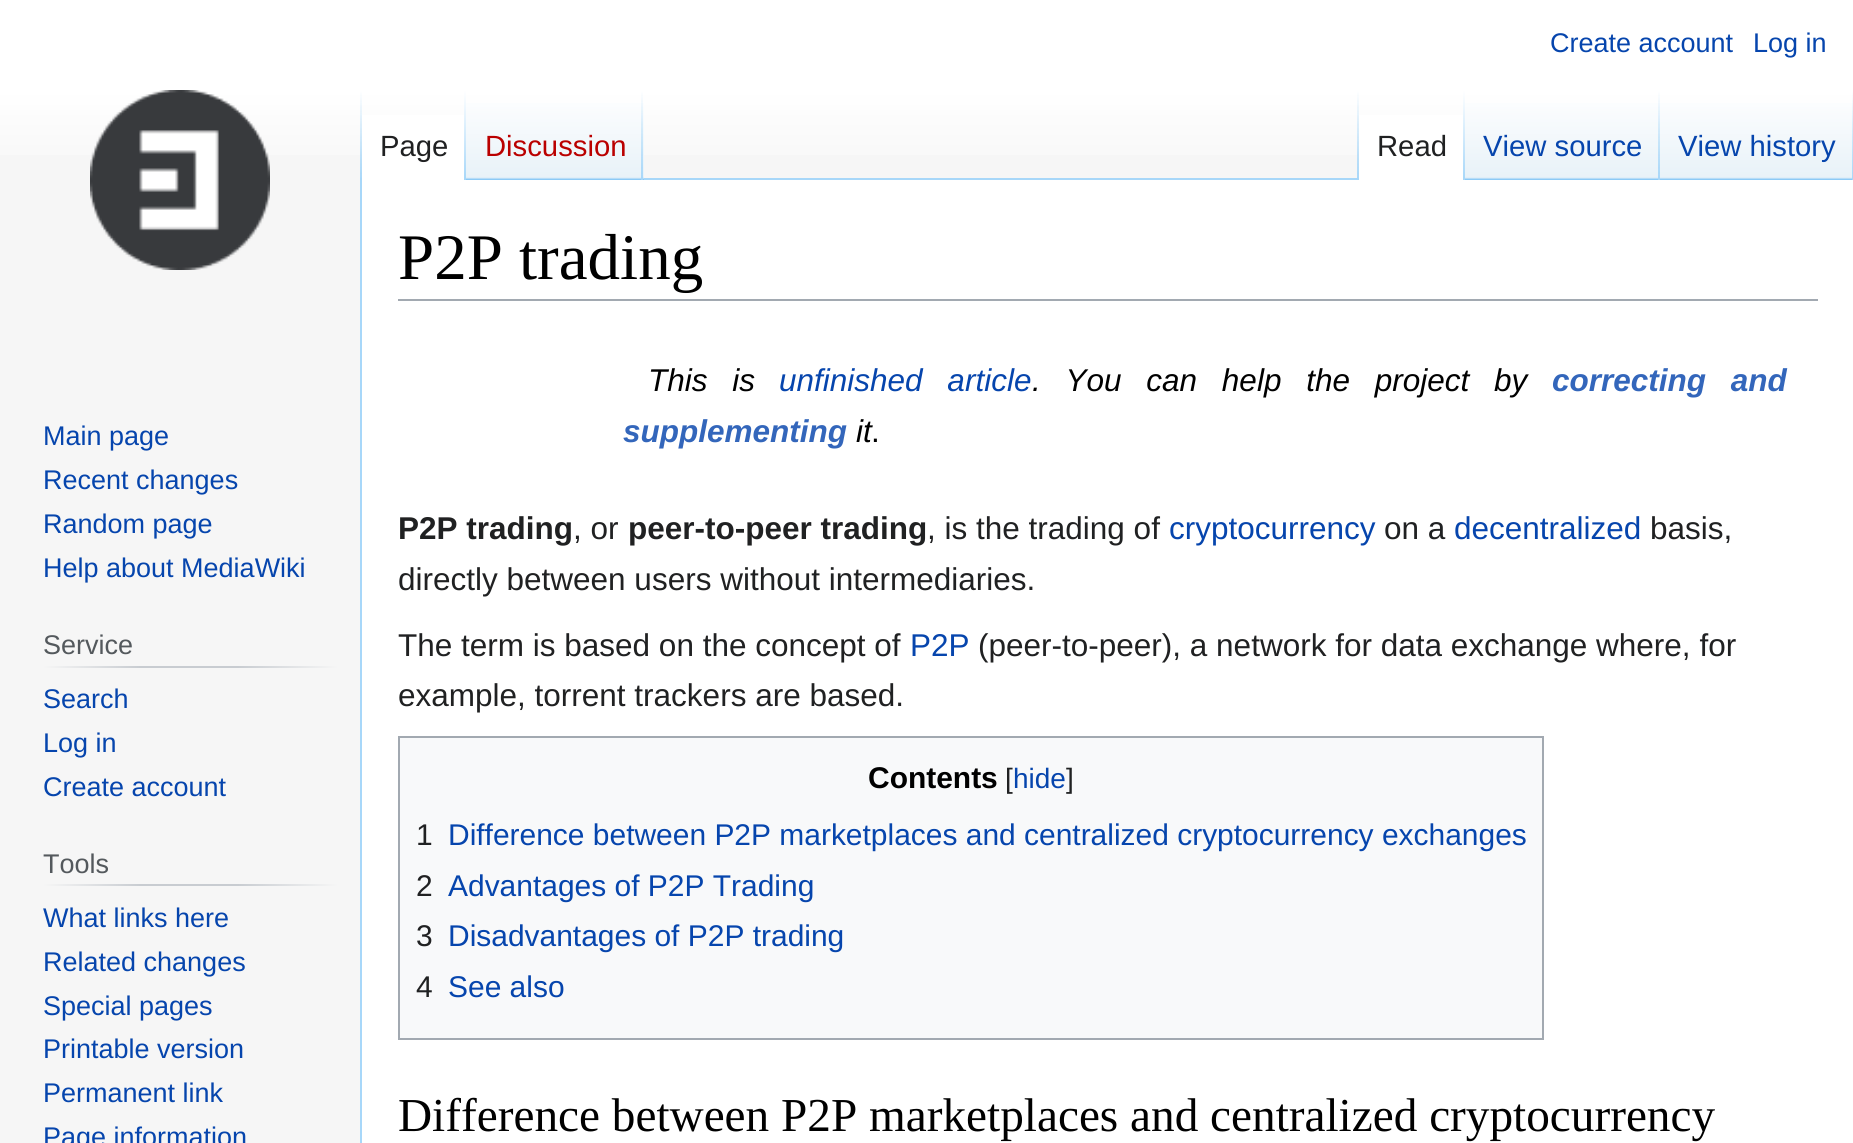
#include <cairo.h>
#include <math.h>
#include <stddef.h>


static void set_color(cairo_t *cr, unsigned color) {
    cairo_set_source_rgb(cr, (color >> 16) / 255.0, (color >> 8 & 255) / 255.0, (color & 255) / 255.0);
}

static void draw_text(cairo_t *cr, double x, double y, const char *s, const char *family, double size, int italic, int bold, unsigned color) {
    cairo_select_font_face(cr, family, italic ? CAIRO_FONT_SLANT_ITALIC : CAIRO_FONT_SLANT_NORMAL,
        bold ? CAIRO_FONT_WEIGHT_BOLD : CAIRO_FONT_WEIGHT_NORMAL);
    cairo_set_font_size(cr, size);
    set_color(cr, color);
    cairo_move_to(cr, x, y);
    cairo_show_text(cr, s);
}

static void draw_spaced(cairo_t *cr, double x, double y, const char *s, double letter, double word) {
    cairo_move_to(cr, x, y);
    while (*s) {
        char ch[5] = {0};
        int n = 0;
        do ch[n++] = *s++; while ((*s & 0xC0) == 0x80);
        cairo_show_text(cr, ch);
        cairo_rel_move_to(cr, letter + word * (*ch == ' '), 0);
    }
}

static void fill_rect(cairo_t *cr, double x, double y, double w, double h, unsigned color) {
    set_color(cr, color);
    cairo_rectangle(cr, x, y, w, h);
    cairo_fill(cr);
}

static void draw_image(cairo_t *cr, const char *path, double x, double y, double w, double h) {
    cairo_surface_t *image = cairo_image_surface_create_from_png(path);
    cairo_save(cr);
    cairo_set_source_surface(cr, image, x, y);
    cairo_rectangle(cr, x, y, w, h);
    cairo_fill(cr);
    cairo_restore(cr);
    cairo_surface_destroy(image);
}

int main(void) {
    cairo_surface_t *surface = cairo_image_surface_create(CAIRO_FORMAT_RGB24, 1853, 1143);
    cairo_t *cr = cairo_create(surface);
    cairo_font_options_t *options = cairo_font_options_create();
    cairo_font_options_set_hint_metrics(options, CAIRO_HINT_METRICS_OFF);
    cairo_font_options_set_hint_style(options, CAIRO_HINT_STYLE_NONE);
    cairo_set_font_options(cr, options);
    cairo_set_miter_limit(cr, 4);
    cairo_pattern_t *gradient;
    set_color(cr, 0xF6F6F6);
    cairo_paint(cr);
    gradient = cairo_pattern_create_linear(927, 0, 927, 180);
    cairo_pattern_add_color_stop_rgba(gradient, 0.5, 1, 1, 1, 1);
    cairo_pattern_add_color_stop_rgba(gradient, 1, 0.965, 0.965, 0.965, 1);
    cairo_set_source(cr, gradient);
    cairo_pattern_destroy(gradient);
    cairo_rectangle(cr, 0, 0, 1853, 155);
    cairo_fill(cr);
    draw_text(cr, 1550, 52, "Create account", "Liberation Sans", 27, 0, 0, 0x0645AD);
    draw_text(cr, 1753, 52, "Log in", "Liberation Sans", 27, 0, 0, 0x0645AD);
    fill_rect(cr, 360, 178, 2, 965, 0xA7D7F9);
    gradient = cairo_pattern_create_linear(361, 90, 361, 180);
    cairo_pattern_add_color_stop_rgba(gradient, 0, 0.655, 0.843, 0.976, 0);
    cairo_pattern_add_color_stop_rgba(gradient, 1, 0.655, 0.843, 0.976, 1);
    cairo_set_source(cr, gradient);
    cairo_pattern_destroy(gradient);
    cairo_rectangle(cr, 360, 90, 2, 90);
    cairo_fill(cr);
    fill_rect(cr, 362, 115, 102, 65, 0xFFFFFF);
    gradient = cairo_pattern_create_linear(465, 90, 465, 180);
    cairo_pattern_add_color_stop_rgba(gradient, 0, 1, 1, 1, 1);
    cairo_pattern_add_color_stop_rgba(gradient, 1, 0.655, 0.843, 0.976, 1);
    cairo_set_source(cr, gradient);
    cairo_pattern_destroy(gradient);
    cairo_rectangle(cr, 464, 90, 2, 90);
    cairo_fill(cr);
    draw_text(cr, 380, 156, "Page", "Liberation Sans", 29.25, 0, 0, 0x202122);
    gradient = cairo_pattern_create_linear(555, 180, 555, 90);
    cairo_pattern_add_color_stop_rgba(gradient, 0, 0.467, 0.757, 0.965, 1);
    cairo_pattern_add_color_stop_rgba(gradient, 0.03, 0.91, 0.949, 0.973, 1);
    cairo_pattern_add_color_stop_rgba(gradient, 1, 1, 1, 1, 1);
    cairo_set_source(cr, gradient);
    cairo_pattern_destroy(gradient);
    cairo_rectangle(cr, 466, 103, 178, 77);
    cairo_fill(cr);
    gradient = cairo_pattern_create_linear(642, 90, 642, 180);
    cairo_pattern_add_color_stop_rgba(gradient, 0, 0.655, 0.843, 0.976, 0);
    cairo_pattern_add_color_stop_rgba(gradient, 1, 0.655, 0.843, 0.976, 1);
    cairo_set_source(cr, gradient);
    cairo_pattern_destroy(gradient);
    cairo_rectangle(cr, 641, 90, 2, 90);
    cairo_fill(cr);
    draw_text(cr, 485, 156, "Discussion", "Liberation Sans", 29.25, 0, 0, 0xBA0000);
    fill_rect(cr, 644, 178, 715, 2, 0xA7D7F9);
    gradient = cairo_pattern_create_linear(1358, 90, 1358, 180);
    cairo_pattern_add_color_stop_rgba(gradient, 0, 0.655, 0.843, 0.976, 0);
    cairo_pattern_add_color_stop_rgba(gradient, 1, 0.655, 0.843, 0.976, 1);
    cairo_set_source(cr, gradient);
    cairo_pattern_destroy(gradient);
    cairo_rectangle(cr, 1357, 90, 2, 90);
    cairo_fill(cr);
    fill_rect(cr, 1359, 115, 104, 65, 0xFFFFFF);
    gradient = cairo_pattern_create_linear(1464, 90, 1464, 180);
    cairo_pattern_add_color_stop_rgba(gradient, 0, 1, 1, 1, 1);
    cairo_pattern_add_color_stop_rgba(gradient, 1, 0.655, 0.843, 0.976, 1);
    cairo_set_source(cr, gradient);
    cairo_pattern_destroy(gradient);
    cairo_rectangle(cr, 1463, 90, 2, 90);
    cairo_fill(cr);
    draw_text(cr, 1377, 156, "Read", "Liberation Sans", 29.25, 0, 0, 0x202122);
    gradient = cairo_pattern_create_linear(1563, 180, 1563, 90);
    cairo_pattern_add_color_stop_rgba(gradient, 0, 0.467, 0.757, 0.965, 1);
    cairo_pattern_add_color_stop_rgba(gradient, 0.03, 0.91, 0.949, 0.973, 1);
    cairo_pattern_add_color_stop_rgba(gradient, 1, 1, 1, 1, 1);
    cairo_set_source(cr, gradient);
    cairo_pattern_destroy(gradient);
    cairo_rectangle(cr, 1465, 103, 196, 77);
    cairo_fill(cr);
    gradient = cairo_pattern_create_linear(1659, 90, 1659, 180);
    cairo_pattern_add_color_stop_rgba(gradient, 0, 0.655, 0.843, 0.976, 0);
    cairo_pattern_add_color_stop_rgba(gradient, 1, 0.655, 0.843, 0.976, 1);
    cairo_set_source(cr, gradient);
    cairo_pattern_destroy(gradient);
    cairo_rectangle(cr, 1658, 90, 2, 90);
    cairo_fill(cr);
    draw_text(cr, 1483, 156, "View source", "Liberation Sans", 29.25, 0, 0, 0x0645AD);
    gradient = cairo_pattern_create_linear(1757, 180, 1757, 90);
    cairo_pattern_add_color_stop_rgba(gradient, 0, 0.467, 0.757, 0.965, 1);
    cairo_pattern_add_color_stop_rgba(gradient, 0.03, 0.91, 0.949, 0.973, 1);
    cairo_pattern_add_color_stop_rgba(gradient, 1, 1, 1, 1, 1);
    cairo_set_source(cr, gradient);
    cairo_pattern_destroy(gradient);
    cairo_rectangle(cr, 1661, 103, 192, 77);
    cairo_fill(cr);
    gradient = cairo_pattern_create_linear(1853, 90, 1853, 180);
    cairo_pattern_add_color_stop_rgba(gradient, 0, 0.655, 0.843, 0.976, 0);
    cairo_pattern_add_color_stop_rgba(gradient, 1, 0.655, 0.843, 0.976, 1);
    cairo_set_source(cr, gradient);
    cairo_pattern_destroy(gradient);
    cairo_rectangle(cr, 1852, 90, 1, 90);
    cairo_fill(cr);
    draw_text(cr, 1678, 156, "View history", "Liberation Sans", 29.25, 0, 0, 0x0645AD);
    draw_image(cr, "assets/img1.png", 90, 90, 180, 180);
    draw_text(cr, 43, 445, "Main page", "Liberation Sans", 27, 0, 0, 0x0645AD);
    draw_text(cr, 43, 489, "Recent changes", "Liberation Sans", 27, 0, 0, 0x0645AD);
    draw_text(cr, 43, 533, "Random page", "Liberation Sans", 27, 0, 0, 0x0645AD);
    draw_text(cr, 43, 577, "Help about MediaWiki", "Liberation Sans", 27, 0, 0, 0x0645AD);
    gradient = cairo_pattern_create_linear(43, 667, 338, 667);
    cairo_pattern_add_color_stop_rgba(gradient, 0, 0.965, 0.965, 0.965, 1);
    cairo_pattern_add_color_stop_rgba(gradient, 0.33, 0.784, 0.8, 0.82, 1);
    cairo_pattern_add_color_stop_rgba(gradient, 0.66, 0.784, 0.8, 0.82, 1);
    cairo_pattern_add_color_stop_rgba(gradient, 1, 0.965, 0.965, 0.965, 1);
    cairo_set_source(cr, gradient);
    cairo_pattern_destroy(gradient);
    cairo_rectangle(cr, 43, 666, 295, 2);
    cairo_fill(cr);
    draw_text(cr, 43, 654, "Service", "Liberation Sans", 27, 0, 0, 0x54595D);
    draw_text(cr, 43, 708, "Search", "Liberation Sans", 27, 0, 0, 0x0645AD);
    draw_text(cr, 43, 752, "Log in", "Liberation Sans", 27, 0, 0, 0x0645AD);
    draw_text(cr, 43, 796, "Create account", "Liberation Sans", 27, 0, 0, 0x0645AD);
    gradient = cairo_pattern_create_linear(43, 885, 338, 885);
    cairo_pattern_add_color_stop_rgba(gradient, 0, 0.965, 0.965, 0.965, 1);
    cairo_pattern_add_color_stop_rgba(gradient, 0.33, 0.784, 0.8, 0.82, 1);
    cairo_pattern_add_color_stop_rgba(gradient, 0.66, 0.784, 0.8, 0.82, 1);
    cairo_pattern_add_color_stop_rgba(gradient, 1, 0.965, 0.965, 0.965, 1);
    cairo_set_source(cr, gradient);
    cairo_pattern_destroy(gradient);
    cairo_rectangle(cr, 43, 884, 295, 2);
    cairo_fill(cr);
    draw_text(cr, 43, 873, "Tools", "Liberation Sans", 27, 0, 0, 0x54595D);
    draw_text(cr, 43, 927, "What links here", "Liberation Sans", 27, 0, 0, 0x0645AD);
    draw_text(cr, 43, 971, "Related changes", "Liberation Sans", 27, 0, 0, 0x0645AD);
    draw_text(cr, 43, 1015, "Special pages", "Liberation Sans", 27, 0, 0, 0x0645AD);
    draw_text(cr, 43, 1058, "Printable version", "Liberation Sans", 27, 0, 0, 0x0645AD);
    draw_text(cr, 43, 1102, "Permanent link", "Liberation Sans", 27, 0, 0, 0x0645AD);
    draw_text(cr, 43, 1146, "Page information", "Liberation Sans", 27, 0, 0, 0x0645AD);
    fill_rect(cr, 362, 180, 1491, 963, 0xFFFFFF);
    fill_rect(cr, 398, 299, 1420, 2, 0xA2A9B1);
    draw_text(cr, 398, 279, "P2P trading", "Liberation Serif", 65, 0, 0, 0x000000);
    cairo_select_font_face(cr, "Liberation Sans", CAIRO_FONT_SLANT_ITALIC, CAIRO_FONT_WEIGHT_NORMAL);
    cairo_set_font_size(cr, 31.5);
    draw_spaced(cr, 648, 391, "This is", 0, 16);
    set_color(cr, 0x0645AD);
    draw_spaced(cr, 779, 391, "unfinished article", 0, 16);
    set_color(cr, 0x000000);
    draw_spaced(cr, 1032, 391, ". You can help the project by", 0, 16);
    cairo_select_font_face(cr, "Liberation Sans", CAIRO_FONT_SLANT_ITALIC, CAIRO_FONT_WEIGHT_BOLD);
    set_color(cr, 0x3366BB);
    draw_spaced(cr, 1552, 391, "correcting and", 0, 16);
    draw_text(cr, 623, 442, "supplementing", "Liberation Sans", 31.5, 1, 1, 0x3366BB);
    draw_text(cr, 856, 442, "it", "Liberation Sans", 31.5, 1, 0, 0x000000);
    draw_text(cr, 871, 442, ".", "Liberation Sans", 31.5, 0, 0, 0x000000);
    draw_text(cr, 398, 539, "P2P trading", "Liberation Sans", 31.5, 0, 1, 0x202122);
    draw_text(cr, 573, 539, ", or", "Liberation Sans", 31.5, 0, 0, 0x202122);
    draw_text(cr, 628, 539, "peer-to-peer trading", "Liberation Sans", 31.5, 0, 1, 0x202122);
    draw_text(cr, 927, 539, ", is the trading of", "Liberation Sans", 31.5, 0, 0, 0x202122);
    draw_text(cr, 1169, 539, "cryptocurrency", "Liberation Sans", 31.5, 0, 0, 0x0645AD);
    draw_text(cr, 1384, 539, "on a", "Liberation Sans", 31.5, 0, 0, 0x202122);
    draw_text(cr, 1454, 539, "decentralized", "Liberation Sans", 31.5, 0, 0, 0x0645AD);
    draw_text(cr, 1650, 539, "basis,", "Liberation Sans", 31.5, 0, 0, 0x202122);
    draw_text(cr, 398, 590, "directly between users without intermediaries.", "Liberation Sans", 31.5, 0, 0, 0x202122);
    draw_text(cr, 398, 656, "The term is based on the concept of", "Liberation Sans", 31.5, 0, 0, 0x202122);
    draw_text(cr, 910, 656, "P2P", "Liberation Sans", 31.5, 0, 0, 0x0645AD);
    draw_text(cr, 978, 656, "(peer-to-peer), a network for data exchange where, for", "Liberation Sans", 31.5, 0, 0, 0x202122);
    draw_text(cr, 398, 706, "example, torrent trackers are based.", "Liberation Sans", 31.5, 0, 0, 0x202122);
    set_color(cr, 0xF8F9FA);
    cairo_rectangle(cr, 399, 737, 1144, 302);
    cairo_fill_preserve(cr);
    set_color(cr, 0xA2A9B1);
    cairo_stroke(cr);
    draw_text(cr, 868, 788, "Contents", "Liberation Sans", 29.95, 0, 1, 0x000000);
    draw_text(cr, 1005, 788, "[", "Liberation Sans", 28, 0, 0, 0x202122);
    draw_text(cr, 1013, 788, "hide", "Liberation Sans", 28, 0, 0, 0x0645AD);
    draw_text(cr, 1066, 788, "]", "Liberation Sans", 28, 0, 0, 0x202122);
    draw_text(cr, 416, 845, "1", "Liberation Sans", 29.95, 0, 0, 0x202122);
    draw_text(cr, 448, 845, "Difference between P2P marketplaces and centralized cryptocurrency exchanges", "Liberation Sans", 29.95, 0, 0, 0x0645AD);
    draw_text(cr, 416, 896, "2", "Liberation Sans", 29.95, 0, 0, 0x202122);
    draw_text(cr, 448, 896, "Advantages of P2P Trading", "Liberation Sans", 29.95, 0, 0, 0x0645AD);
    draw_text(cr, 416, 946, "3", "Liberation Sans", 29.95, 0, 0, 0x202122);
    draw_text(cr, 448, 946, "Disadvantages of P2P trading", "Liberation Sans", 29.95, 0, 0, 0x0645AD);
    draw_text(cr, 416, 997, "4", "Liberation Sans", 29.95, 0, 0, 0x202122);
    draw_text(cr, 448, 997, "See also", "Liberation Sans", 29.95, 0, 0, 0x0645AD);
    draw_text(cr, 398, 1131, "Difference between P2P marketplaces and centralized cryptocurrency", "Liberation Serif", 47.25, 0, 0, 0x000000);
    cairo_surface_write_to_png(surface, "output.png");
    cairo_font_options_destroy(options);
    cairo_destroy(cr);
    cairo_surface_destroy(surface);
    return 0;
}
